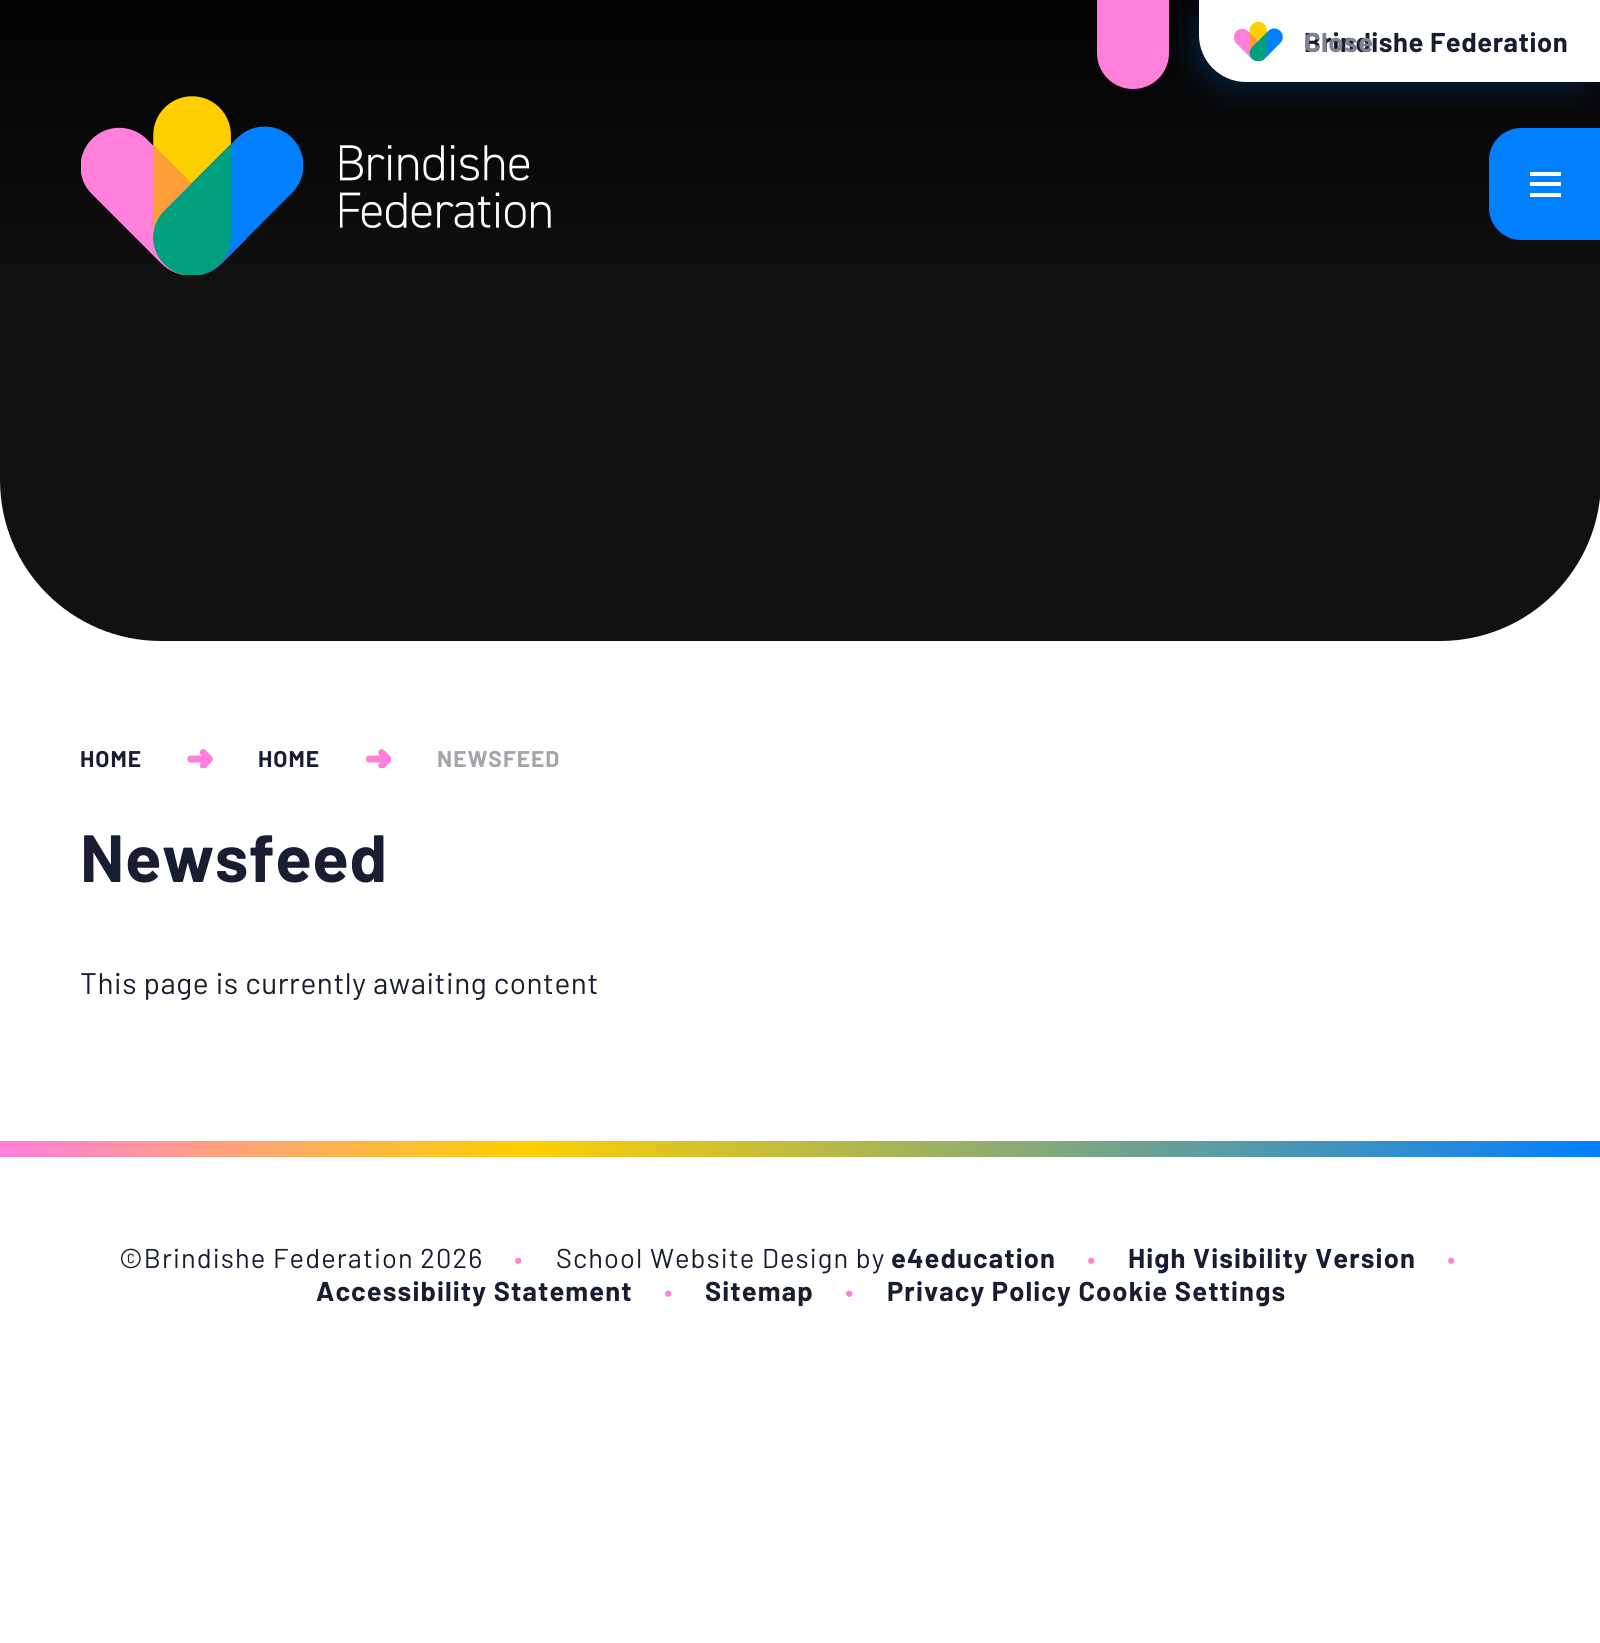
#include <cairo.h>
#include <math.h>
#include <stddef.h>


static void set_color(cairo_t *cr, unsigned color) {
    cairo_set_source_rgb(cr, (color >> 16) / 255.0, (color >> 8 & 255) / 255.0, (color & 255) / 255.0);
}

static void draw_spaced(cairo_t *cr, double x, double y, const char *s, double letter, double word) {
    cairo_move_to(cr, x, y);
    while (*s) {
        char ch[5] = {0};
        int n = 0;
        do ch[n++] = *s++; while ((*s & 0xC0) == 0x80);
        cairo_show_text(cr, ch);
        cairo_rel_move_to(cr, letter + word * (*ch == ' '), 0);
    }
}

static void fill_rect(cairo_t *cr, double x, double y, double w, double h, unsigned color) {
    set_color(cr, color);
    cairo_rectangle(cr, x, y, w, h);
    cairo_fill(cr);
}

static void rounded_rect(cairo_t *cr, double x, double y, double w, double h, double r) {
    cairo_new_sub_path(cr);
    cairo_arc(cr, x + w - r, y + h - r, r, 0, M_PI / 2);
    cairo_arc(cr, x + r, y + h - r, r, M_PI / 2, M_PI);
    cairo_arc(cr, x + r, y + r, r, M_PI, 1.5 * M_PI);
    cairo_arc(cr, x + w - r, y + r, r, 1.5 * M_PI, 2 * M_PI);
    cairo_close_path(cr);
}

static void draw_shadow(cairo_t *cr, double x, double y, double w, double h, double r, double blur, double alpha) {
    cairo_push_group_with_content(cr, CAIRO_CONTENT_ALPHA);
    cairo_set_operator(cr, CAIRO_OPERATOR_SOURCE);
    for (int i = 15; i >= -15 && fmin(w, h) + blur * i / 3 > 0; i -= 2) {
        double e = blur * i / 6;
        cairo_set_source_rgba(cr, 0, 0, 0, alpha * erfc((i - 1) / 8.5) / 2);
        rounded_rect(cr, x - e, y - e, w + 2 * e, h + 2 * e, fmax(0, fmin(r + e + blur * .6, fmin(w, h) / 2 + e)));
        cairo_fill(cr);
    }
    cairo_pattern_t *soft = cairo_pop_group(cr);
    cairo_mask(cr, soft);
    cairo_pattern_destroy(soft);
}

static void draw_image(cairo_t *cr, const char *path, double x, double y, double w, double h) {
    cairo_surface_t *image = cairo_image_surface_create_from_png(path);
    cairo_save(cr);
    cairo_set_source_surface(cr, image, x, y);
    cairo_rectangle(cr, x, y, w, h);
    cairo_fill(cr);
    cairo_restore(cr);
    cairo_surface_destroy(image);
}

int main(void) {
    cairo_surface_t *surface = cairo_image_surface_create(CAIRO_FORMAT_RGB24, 1600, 1643);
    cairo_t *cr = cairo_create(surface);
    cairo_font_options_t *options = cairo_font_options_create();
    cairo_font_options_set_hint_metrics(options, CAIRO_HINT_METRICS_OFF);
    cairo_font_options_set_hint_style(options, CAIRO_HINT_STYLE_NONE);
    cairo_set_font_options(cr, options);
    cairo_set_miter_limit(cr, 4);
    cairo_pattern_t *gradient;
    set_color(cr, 0xFFFFFF);
    cairo_paint(cr);
    set_color(cr, 0x111111);
    cairo_new_path(cr);
    cairo_move_to(cr, 0, 0);
    cairo_line_to(cr, 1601, 0);
    cairo_line_to(cr, 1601, 480);
    cairo_curve_to(cr, 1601, 569, 1529, 641, 1440, 641);
    cairo_line_to(cr, 161, 641);
    cairo_curve_to(cr, 72, 641, 0, 569, 0, 480);
    cairo_close_path(cr);
    cairo_fill(cr);
    gradient = cairo_pattern_create_linear(801, 0, 801, 641);
    cairo_pattern_add_color_stop_rgba(gradient, 0, 0, 0, 0, 0.9);
    cairo_pattern_add_color_stop_rgba(gradient, 0.5, 0, 0, 0, 0);
    cairo_pattern_add_color_stop_rgba(gradient, 1, 0, 0, 0, 0);
    cairo_set_source(cr, gradient);
    cairo_pattern_destroy(gradient);
    cairo_rectangle(cr, 0, 0, 1600, 265);
    cairo_fill(cr);
    set_color(cr, 0x007FFF);
    draw_shadow(cr, 1199, 0, 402, 82, 47, 17.5, 0.3);
    set_color(cr, 0xFF7FDB);
    cairo_new_path(cr);
    cairo_move_to(cr, 1097, 0);
    cairo_line_to(cr, 1169, 0);
    cairo_line_to(cr, 1169, 53);
    cairo_curve_to(cr, 1169, 73, 1153, 89, 1133, 89);
    cairo_curve_to(cr, 1113, 89, 1097, 73, 1097, 53);
    cairo_close_path(cr);
    cairo_fill(cr);
    set_color(cr, 0xFFFFFF);
    cairo_new_path(cr);
    cairo_move_to(cr, 1199, 0);
    cairo_line_to(cr, 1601, 0);
    cairo_line_to(cr, 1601, 82);
    cairo_line_to(cr, 1246, 82);
    cairo_curve_to(cr, 1220, 82, 1199, 61, 1199, 35);
    cairo_close_path(cr);
    cairo_fill(cr);
    draw_image(cr, "assets/img1.png", 1234, 22, 49, 39);
    cairo_select_font_face(cr, "Barlow", CAIRO_FONT_SLANT_NORMAL, CAIRO_FONT_WEIGHT_BOLD);
    cairo_set_font_size(cr, 27.25);
    set_color(cr, 0x191D32);
    draw_spaced(cr, 1304, 52, "Brindishe Federation", 0.55, 0);
    set_color(cr, 0x80828E);
    draw_spaced(cr, 1304, 52, "Close", 0.55, 0);
    draw_image(cr, "assets/img2.png", 81, 96, 222, 179);
    draw_image(cr, "assets/img3.png", 340, 145, 211, 83);
    set_color(cr, 0x007FFF);
    cairo_new_path(cr);
    cairo_move_to(cr, 1521, 128);
    cairo_line_to(cr, 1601, 128);
    cairo_line_to(cr, 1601, 240);
    cairo_line_to(cr, 1521, 240);
    cairo_curve_to(cr, 1503.5, 240, 1489, 225.5, 1489, 208);
    cairo_line_to(cr, 1489, 160);
    cairo_curve_to(cr, 1489, 142.5, 1503.5, 128, 1521, 128);
    cairo_close_path(cr);
    cairo_fill(cr);
    fill_rect(cr, 1530, 172, 31, 4, 0xFFFFFF);
    fill_rect(cr, 1530, 182, 31, 4, 0xFFFFFF);
    fill_rect(cr, 1530, 193, 31, 4, 0xFFFFFF);
    cairo_set_font_size(cr, 22.75);
    set_color(cr, 0x191D32);
    draw_spaced(cr, 80, 767, "HOME", 1, 0);
    draw_image(cr, "assets/img4.png", 187, 749, 26, 19);
    draw_spaced(cr, 258, 767, "HOME", 1, 0);
    draw_image(cr, "assets/img5.png", 366, 749, 25, 19);
    set_color(cr, 0xA3A5AD);
    draw_spaced(cr, 437, 767, "NEWSFEED", 1, 0);
    cairo_set_font_size(cr, 66.75);
    set_color(cr, 0x191D32);
    draw_spaced(cr, 80, 882, "Newsfeed", 0.55, 0);
    cairo_select_font_face(cr, "Barlow", CAIRO_FONT_SLANT_NORMAL, CAIRO_FONT_WEIGHT_NORMAL);
    cairo_set_font_size(cr, 29.75);
    draw_spaced(cr, 80, 994, "This page is currently awaiting content", 0.55, 0);
    gradient = cairo_pattern_create_linear(0, 1149, 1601, 1149);
    cairo_pattern_add_color_stop_rgba(gradient, 0, 1, 0.498, 0.859, 1);
    cairo_pattern_add_color_stop_rgba(gradient, 0.33, 0.996, 0.816, 0, 1);
    cairo_pattern_add_color_stop_rgba(gradient, 1, 0, 0.498, 1, 1);
    cairo_set_source(cr, gradient);
    cairo_pattern_destroy(gradient);
    cairo_rectangle(cr, 0, 1141, 1600, 16);
    cairo_fill(cr);
    cairo_set_font_size(cr, 27.25);
    set_color(cr, 0x191D32);
    draw_spaced(cr, 119, 1268, "©Brindishe Federation 2026", 1.1, 0);
    set_color(cr, 0xFF7FDB);
    draw_spaced(cr, 514, 1268, "•", 1.1, 0);
    set_color(cr, 0x191D32);
    draw_spaced(cr, 556, 1268, "School Website Design by", 1.1, 0);
    cairo_select_font_face(cr, "Barlow", CAIRO_FONT_SLANT_NORMAL, CAIRO_FONT_WEIGHT_BOLD);
    draw_spaced(cr, 891, 1268, "e4education", 1.1, 0);
    cairo_select_font_face(cr, "Barlow", CAIRO_FONT_SLANT_NORMAL, CAIRO_FONT_WEIGHT_NORMAL);
    set_color(cr, 0xFF7FDB);
    draw_spaced(cr, 1087, 1268, "•", 1.1, 0);
    cairo_select_font_face(cr, "Barlow", CAIRO_FONT_SLANT_NORMAL, CAIRO_FONT_WEIGHT_BOLD);
    set_color(cr, 0x191D32);
    draw_spaced(cr, 1128, 1268, "High Visibility Version", 1.1, 0);
    cairo_select_font_face(cr, "Barlow", CAIRO_FONT_SLANT_NORMAL, CAIRO_FONT_WEIGHT_NORMAL);
    set_color(cr, 0xFF7FDB);
    draw_spaced(cr, 1447, 1268, "•", 1.1, 0);
    cairo_select_font_face(cr, "Barlow", CAIRO_FONT_SLANT_NORMAL, CAIRO_FONT_WEIGHT_BOLD);
    set_color(cr, 0x191D32);
    draw_spaced(cr, 316, 1301, "Accessibility Statement", 1.1, 0);
    cairo_select_font_face(cr, "Barlow", CAIRO_FONT_SLANT_NORMAL, CAIRO_FONT_WEIGHT_NORMAL);
    set_color(cr, 0xFF7FDB);
    draw_spaced(cr, 664, 1301, "•", 1.1, 0);
    cairo_select_font_face(cr, "Barlow", CAIRO_FONT_SLANT_NORMAL, CAIRO_FONT_WEIGHT_BOLD);
    set_color(cr, 0x191D32);
    draw_spaced(cr, 705, 1301, "Sitemap", 1.1, 0);
    cairo_select_font_face(cr, "Barlow", CAIRO_FONT_SLANT_NORMAL, CAIRO_FONT_WEIGHT_NORMAL);
    set_color(cr, 0xFF7FDB);
    draw_spaced(cr, 845, 1301, "•", 1.1, 0);
    cairo_select_font_face(cr, "Barlow", CAIRO_FONT_SLANT_NORMAL, CAIRO_FONT_WEIGHT_BOLD);
    set_color(cr, 0x191D32);
    draw_spaced(cr, 887, 1301, "Privacy Policy Cookie Settings", 1.1, 0);
    cairo_surface_write_to_png(surface, "output.png");
    cairo_font_options_destroy(options);
    cairo_destroy(cr);
    cairo_surface_destroy(surface);
    return 0;
}
